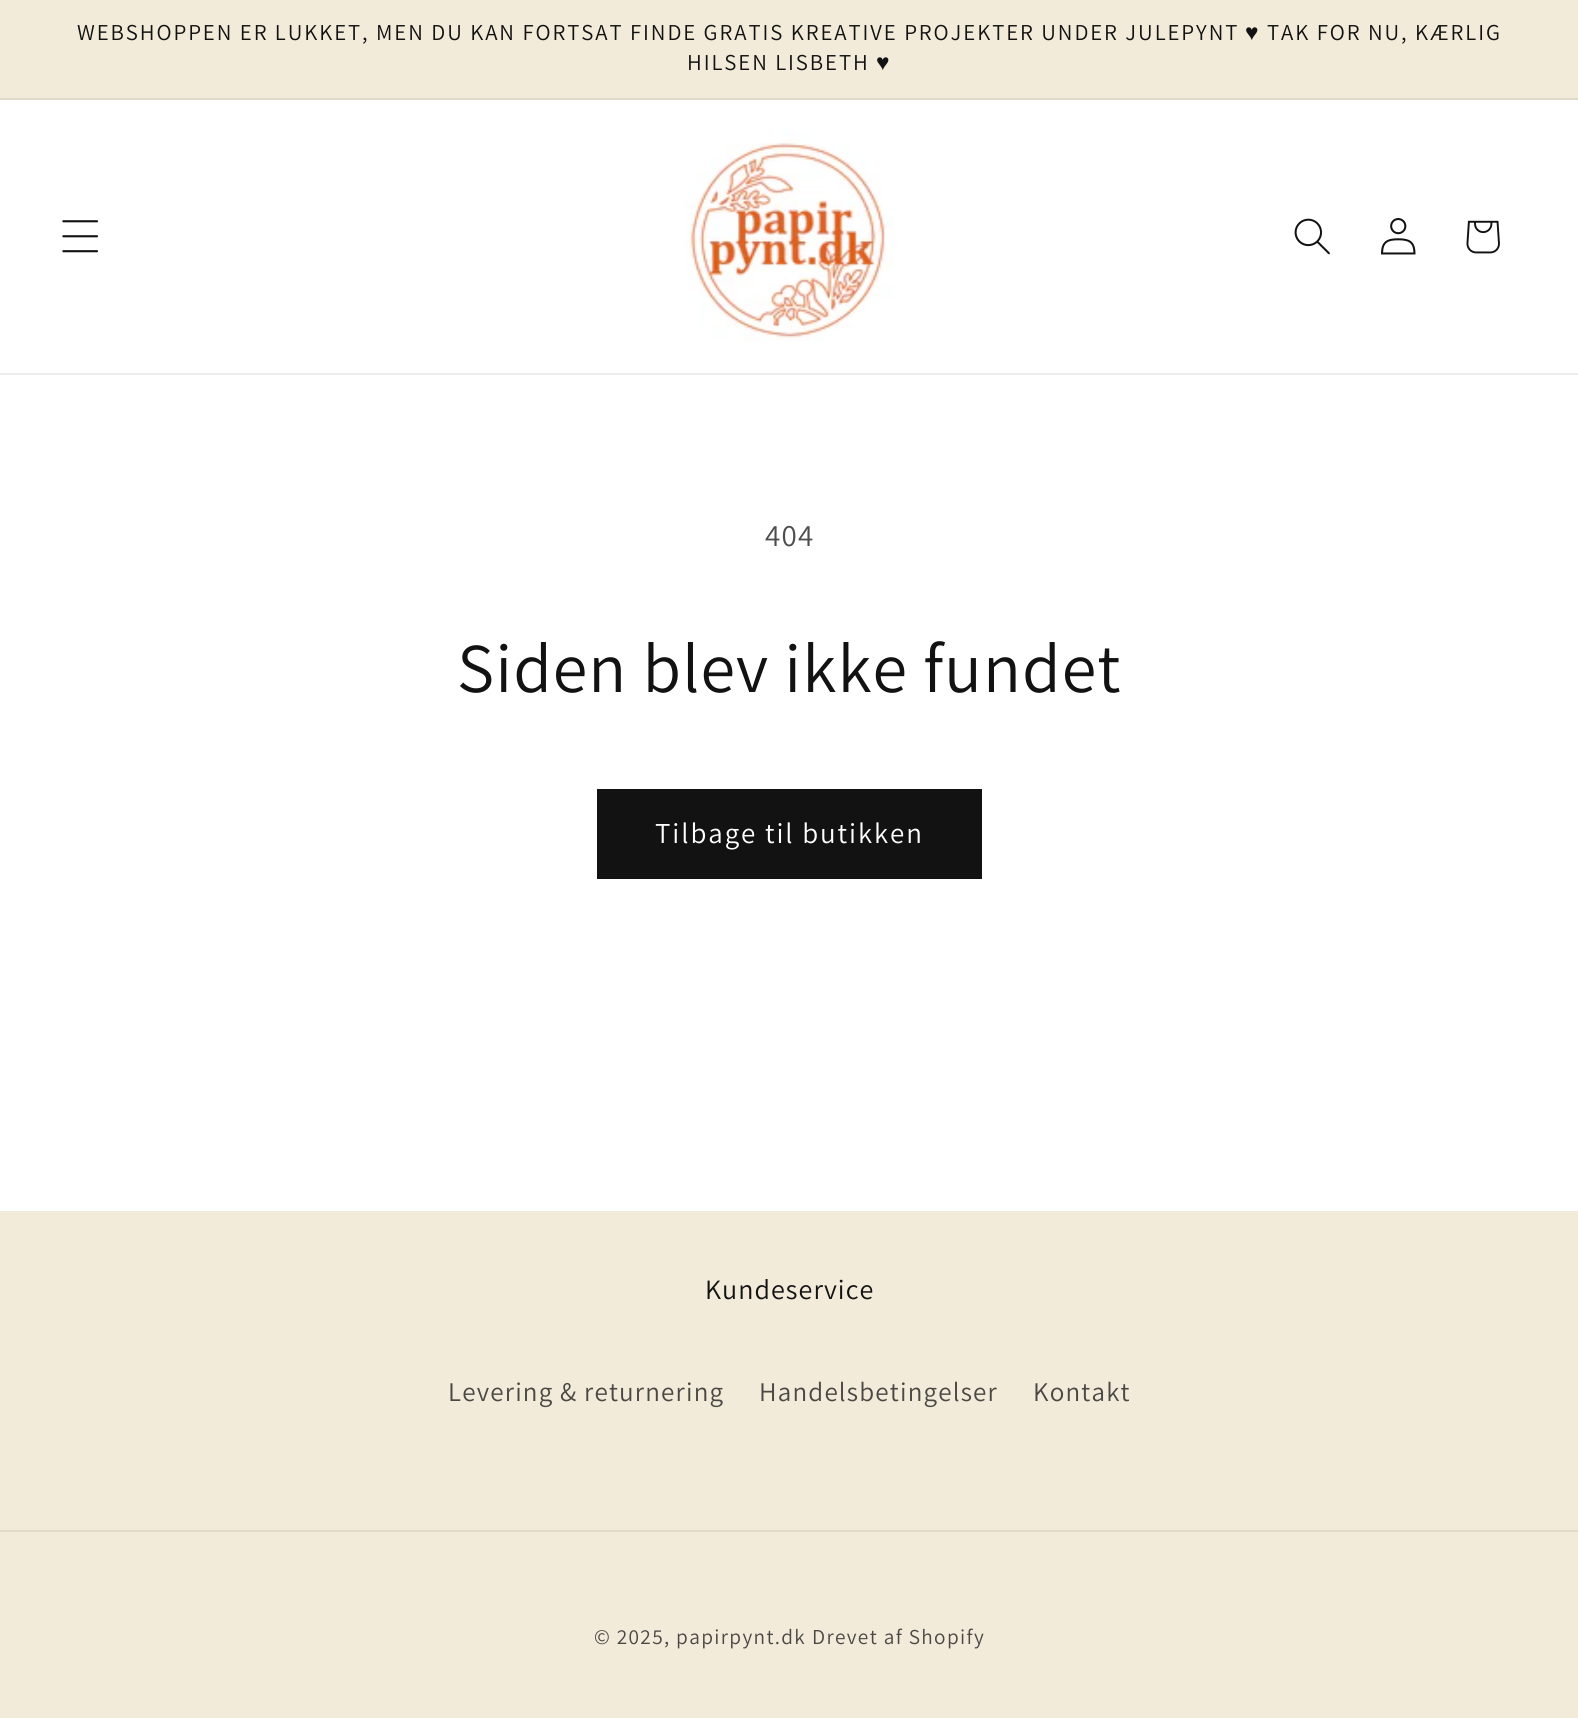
#include <cairo.h>
#include <math.h>
#include <stddef.h>


static void set_color(cairo_t *cr, unsigned color) {
    cairo_set_source_rgb(cr, (color >> 16) / 255.0, (color >> 8 & 255) / 255.0, (color & 255) / 255.0);
}

static void draw_spaced(cairo_t *cr, double x, double y, const char *s, double letter, double word) {
    cairo_move_to(cr, x, y);
    while (*s) {
        char ch[5] = {0};
        int n = 0;
        do ch[n++] = *s++; while ((*s & 0xC0) == 0x80);
        cairo_show_text(cr, ch);
        cairo_rel_move_to(cr, letter + word * (*ch == ' '), 0);
    }
}

static void fill_rect(cairo_t *cr, double x, double y, double w, double h, unsigned color) {
    set_color(cr, color);
    cairo_rectangle(cr, x, y, w, h);
    cairo_fill(cr);
}

static void draw_image(cairo_t *cr, const char *path, double x, double y, double w, double h) {
    cairo_surface_t *image = cairo_image_surface_create_from_png(path);
    cairo_save(cr);
    cairo_set_source_surface(cr, image, x, y);
    cairo_rectangle(cr, x, y, w, h);
    cairo_fill(cr);
    cairo_restore(cr);
    cairo_surface_destroy(image);
}

int main(void) {
    cairo_surface_t *surface = cairo_image_surface_create(CAIRO_FORMAT_RGB24, 1578, 1718);
    cairo_t *cr = cairo_create(surface);
    cairo_font_options_t *options = cairo_font_options_create();
    cairo_font_options_set_hint_metrics(options, CAIRO_HINT_METRICS_OFF);
    cairo_font_options_set_hint_style(options, CAIRO_HINT_STYLE_NONE);
    cairo_set_font_options(cr, options);
    cairo_set_miter_limit(cr, 4);
    set_color(cr, 0xFFFFFF);
    cairo_paint(cr);
    fill_rect(cr, 0, 0, 1578, 98, 0xF2EBDA);
    fill_rect(cr, 0, 98, 1578, 2, 0xE0DACA);
    cairo_select_font_face(cr, "Assistant", CAIRO_FONT_SLANT_NORMAL, CAIRO_FONT_WEIGHT_NORMAL);
    cairo_set_font_size(cr, 22.75);
    set_color(cr, 0x121212);
    draw_spaced(cr, 77, 40, "WEBSHOPPEN ER LUKKET, MEN DU KAN FORTSAT FINDE GRATIS KREATIVE PROJEKTER UNDER JULEPYNT", 1.93, 0);
    cairo_select_font_face(cr, "Liberation Sans", CAIRO_FONT_SLANT_NORMAL, CAIRO_FONT_WEIGHT_NORMAL);
    draw_spaced(cr, 1245, 40, "♥", 1.93, 0);
    cairo_select_font_face(cr, "Assistant", CAIRO_FONT_SLANT_NORMAL, CAIRO_FONT_WEIGHT_NORMAL);
    draw_spaced(cr, 1267, 40, "TAK FOR NU, KÆRLIG", 1.93, 0);
    draw_spaced(cr, 687, 70, "HILSEN LISBETH", 1.93, 0);
    cairo_select_font_face(cr, "Liberation Sans", CAIRO_FONT_SLANT_NORMAL, CAIRO_FONT_WEIGHT_NORMAL);
    draw_spaced(cr, 876, 70, "♥", 1.93, 0);
    fill_rect(cr, 0, 373, 1578, 2, 0xECECEC);
    draw_image(cr, "assets/img1.png", 62, 220, 36, 33);
    draw_image(cr, "assets/img2.png", 684, 131, 210, 210);
    draw_image(cr, "assets/img3.png", 1294, 218, 36, 37);
    draw_image(cr, "assets/img4.png", 1381, 218, 35, 37);
    draw_image(cr, "assets/img5.png", 1466, 220, 34, 34);
    cairo_select_font_face(cr, "Assistant", CAIRO_FONT_SLANT_NORMAL, CAIRO_FONT_WEIGHT_NORMAL);
    cairo_set_font_size(cr, 31);
    set_color(cr, 0x4D4D4D);
    draw_spaced(cr, 765, 546, "404", 1.2, 0);
    cairo_set_font_size(cr, 70);
    set_color(cr, 0x121212);
    draw_spaced(cr, 457, 692, "Siden blev ikke fundet", 1.05, 0);
    fill_rect(cr, 597, 789, 385, 90, 0x121212);
    cairo_set_font_size(cr, 28.9);
    set_color(cr, 0xFFFFFF);
    draw_spaced(cr, 655, 843, "Tilbage til butikken", 1.93, 0);
    fill_rect(cr, 0, 1211, 1578, 507, 0xF2EBDA);
    cairo_set_font_size(cr, 28);
    set_color(cr, 0x121212);
    draw_spaced(cr, 705, 1299, "Kundeservice", 1.05, 0);
    cairo_set_font_size(cr, 27);
    set_color(cr, 0x4A4844);
    draw_spaced(cr, 448, 1401, "Levering & returnering", 1.2, 0);
    draw_spaced(cr, 759, 1401, "Handelsbetingelser", 1.2, 0);
    draw_spaced(cr, 1033, 1401, "Kontakt", 1.2, 0);
    fill_rect(cr, 0, 1530, 1578, 2, 0xE0DACA);
    cairo_set_font_size(cr, 21.25);
    set_color(cr, 0x4A4844);
    draw_spaced(cr, 594, 1644, "© 2025, papirpynt.dk", 1.35, 0);
    draw_spaced(cr, 812, 1644, "Drevet af Shopify", 1.35, 0);
    cairo_surface_write_to_png(surface, "output.png");
    cairo_font_options_destroy(options);
    cairo_destroy(cr);
    cairo_surface_destroy(surface);
    return 0;
}
